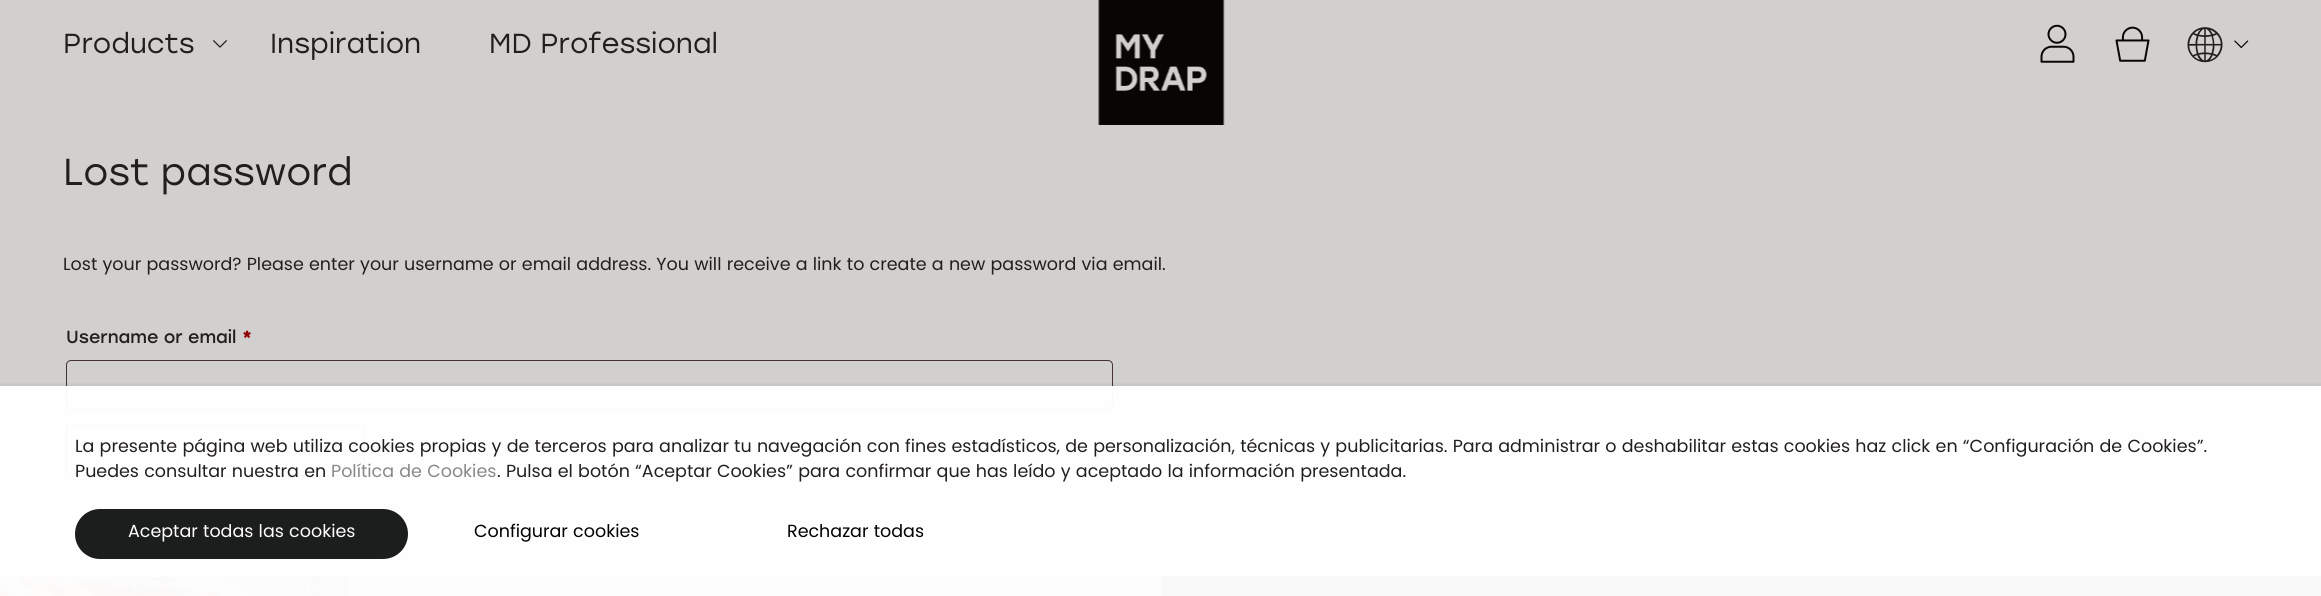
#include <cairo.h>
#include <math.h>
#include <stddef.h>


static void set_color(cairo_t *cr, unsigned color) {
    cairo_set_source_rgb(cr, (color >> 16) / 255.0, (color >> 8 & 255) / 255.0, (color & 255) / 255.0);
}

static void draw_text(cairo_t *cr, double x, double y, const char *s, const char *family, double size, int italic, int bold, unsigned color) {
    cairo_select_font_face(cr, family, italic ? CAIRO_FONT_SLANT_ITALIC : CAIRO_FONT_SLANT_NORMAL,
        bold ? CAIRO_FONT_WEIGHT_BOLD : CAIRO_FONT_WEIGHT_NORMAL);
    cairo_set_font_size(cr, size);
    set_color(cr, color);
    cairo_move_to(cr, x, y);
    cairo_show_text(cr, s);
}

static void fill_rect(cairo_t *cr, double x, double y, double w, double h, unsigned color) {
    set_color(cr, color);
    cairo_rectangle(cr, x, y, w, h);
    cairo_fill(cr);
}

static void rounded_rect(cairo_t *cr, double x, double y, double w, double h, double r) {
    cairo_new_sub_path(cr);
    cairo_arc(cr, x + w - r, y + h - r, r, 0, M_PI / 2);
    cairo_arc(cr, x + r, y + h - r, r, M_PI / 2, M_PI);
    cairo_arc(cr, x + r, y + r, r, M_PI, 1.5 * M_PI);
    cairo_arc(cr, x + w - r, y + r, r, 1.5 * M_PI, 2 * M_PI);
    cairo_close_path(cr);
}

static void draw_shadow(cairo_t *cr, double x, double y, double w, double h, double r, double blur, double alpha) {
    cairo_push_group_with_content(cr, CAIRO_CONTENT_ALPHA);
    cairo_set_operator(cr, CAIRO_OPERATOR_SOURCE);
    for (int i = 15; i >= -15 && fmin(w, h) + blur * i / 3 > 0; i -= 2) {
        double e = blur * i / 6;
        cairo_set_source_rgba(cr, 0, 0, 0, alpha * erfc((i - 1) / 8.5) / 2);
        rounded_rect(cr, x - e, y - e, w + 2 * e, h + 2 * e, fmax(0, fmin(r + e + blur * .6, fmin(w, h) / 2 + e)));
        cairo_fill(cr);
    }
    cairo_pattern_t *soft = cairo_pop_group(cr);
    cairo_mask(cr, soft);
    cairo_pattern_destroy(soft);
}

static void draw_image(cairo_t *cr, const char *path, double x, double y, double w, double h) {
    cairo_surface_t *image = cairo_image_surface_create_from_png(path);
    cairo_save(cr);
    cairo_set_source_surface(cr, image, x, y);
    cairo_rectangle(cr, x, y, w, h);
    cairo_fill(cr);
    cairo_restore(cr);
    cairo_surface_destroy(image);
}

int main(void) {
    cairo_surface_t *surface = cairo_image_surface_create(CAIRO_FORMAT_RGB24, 2321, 596);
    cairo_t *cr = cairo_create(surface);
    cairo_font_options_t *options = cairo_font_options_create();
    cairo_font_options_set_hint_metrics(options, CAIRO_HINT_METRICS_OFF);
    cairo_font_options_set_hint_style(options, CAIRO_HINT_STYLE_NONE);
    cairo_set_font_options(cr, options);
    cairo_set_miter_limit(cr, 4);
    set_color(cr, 0xD1D0CF);
    cairo_paint(cr);
    draw_text(cr, 63, 53, "Products", "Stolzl", 27.5, 0, 0, 0x231E1E);
    draw_image(cr, "assets/img1.png", 213, 40, 14, 8);
    draw_text(cr, 270, 53, "Inspiration", "Stolzl", 27.5, 0, 0, 0x231E1E);
    draw_text(cr, 489, 53, "MD Professional", "Stolzl", 27.5, 0, 0, 0x231E1E);
    draw_image(cr, "assets/img2.png", 1098, 0, 127, 125);
    draw_image(cr, "assets/img3.png", 2040, 24, 35, 39);
    draw_image(cr, "assets/img4.png", 2115, 26, 35, 36);
    draw_image(cr, "assets/img5.png", 2187, 27, 36, 36);
    draw_image(cr, "assets/img6.png", 2234, 40, 15, 8);
    draw_text(cr, 63, 185, "Lost password", "Stolzl", 37.5, 0, 0, 0x231E1E);
    draw_text(cr, 63, 270, "Lost your password? Please enter your username or email address. You will receive a link to create a new password via email.", "Poppins", 17.5, 0, 0, 0x231E1E);
    draw_text(cr, 66, 343, "Username or email", "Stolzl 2", 17.5, 0, 0, 0x231E1E);
    draw_text(cr, 242, 343, "*", "Stolzl", 17.5, 0, 1, 0x8E0605);
    rounded_rect(cr, 66.5, 360.5, 1046, 49, 4.5);
    set_color(cr, 0x453332);
    cairo_set_line_width(cr, 1);
    cairo_stroke(cr);
    cairo_rectangle(cr, 66.5, 425.5, 298, 50);
    set_color(cr, 0x080605);
    cairo_stroke(cr);
    fill_rect(cr, 0, 576, 1161, 20, 0xC5C3C2);
    draw_image(cr, "assets/img7.png", 0, 576, 349, 20);
    fill_rect(cr, 1161, 576, 1160, 20, 0x231E1E);
    cairo_save(cr);
    cairo_rectangle(cr, 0, 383, 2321, 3);
    cairo_clip(cr);
    set_color(cr, 0x000000);
    draw_shadow(cr, 0, 393, 2321, 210, 0, 6, 0.5);
    cairo_restore(cr);
    cairo_set_source_rgba(cr, 1, 1, 1, 0.97);
    cairo_rectangle(cr, 0, 386, 2321, 210);
    cairo_fill(cr);
    draw_text(cr, 75, 452, "La presente página web utiliza cookies propias y de terceros para analizar tu navegación con fines estadísticos, de personalización, técnicas y publicitarias. Para administrar o deshabilitar estas cookies haz click en “Configuración de Cookies”.", "Poppins", 17.5, 0, 0, 0x231E1E);
    draw_text(cr, 75, 477, "Puedes consultar nuestra en", "Poppins", 17.5, 0, 0, 0x231E1E);
    draw_text(cr, 331, 477, "Política de Cookies", "Poppins", 17.5, 0, 0, 0x898888);
    draw_text(cr, 497, 477, ". Pulsa el botón “Aceptar Cookies” para confirmar que has leído y aceptado la información presentada.", "Poppins", 17.5, 0, 0, 0x231E1E);
    set_color(cr, 0x1C1E1D);
    rounded_rect(cr, 75, 509, 333, 50, 25);
    cairo_fill(cr);
    draw_text(cr, 128, 537, "Aceptar todas las cookies", "Poppins", 17.5, 0, 0, 0xFFFFFF);
    draw_text(cr, 474, 537, "Configurar cookies", "Poppins", 17.5, 0, 0, 0x000000);
    draw_text(cr, 787, 537, "Rechazar todas", "Poppins", 17.5, 0, 0, 0x000000);
    cairo_surface_write_to_png(surface, "output.png");
    cairo_font_options_destroy(options);
    cairo_destroy(cr);
    cairo_surface_destroy(surface);
    return 0;
}
